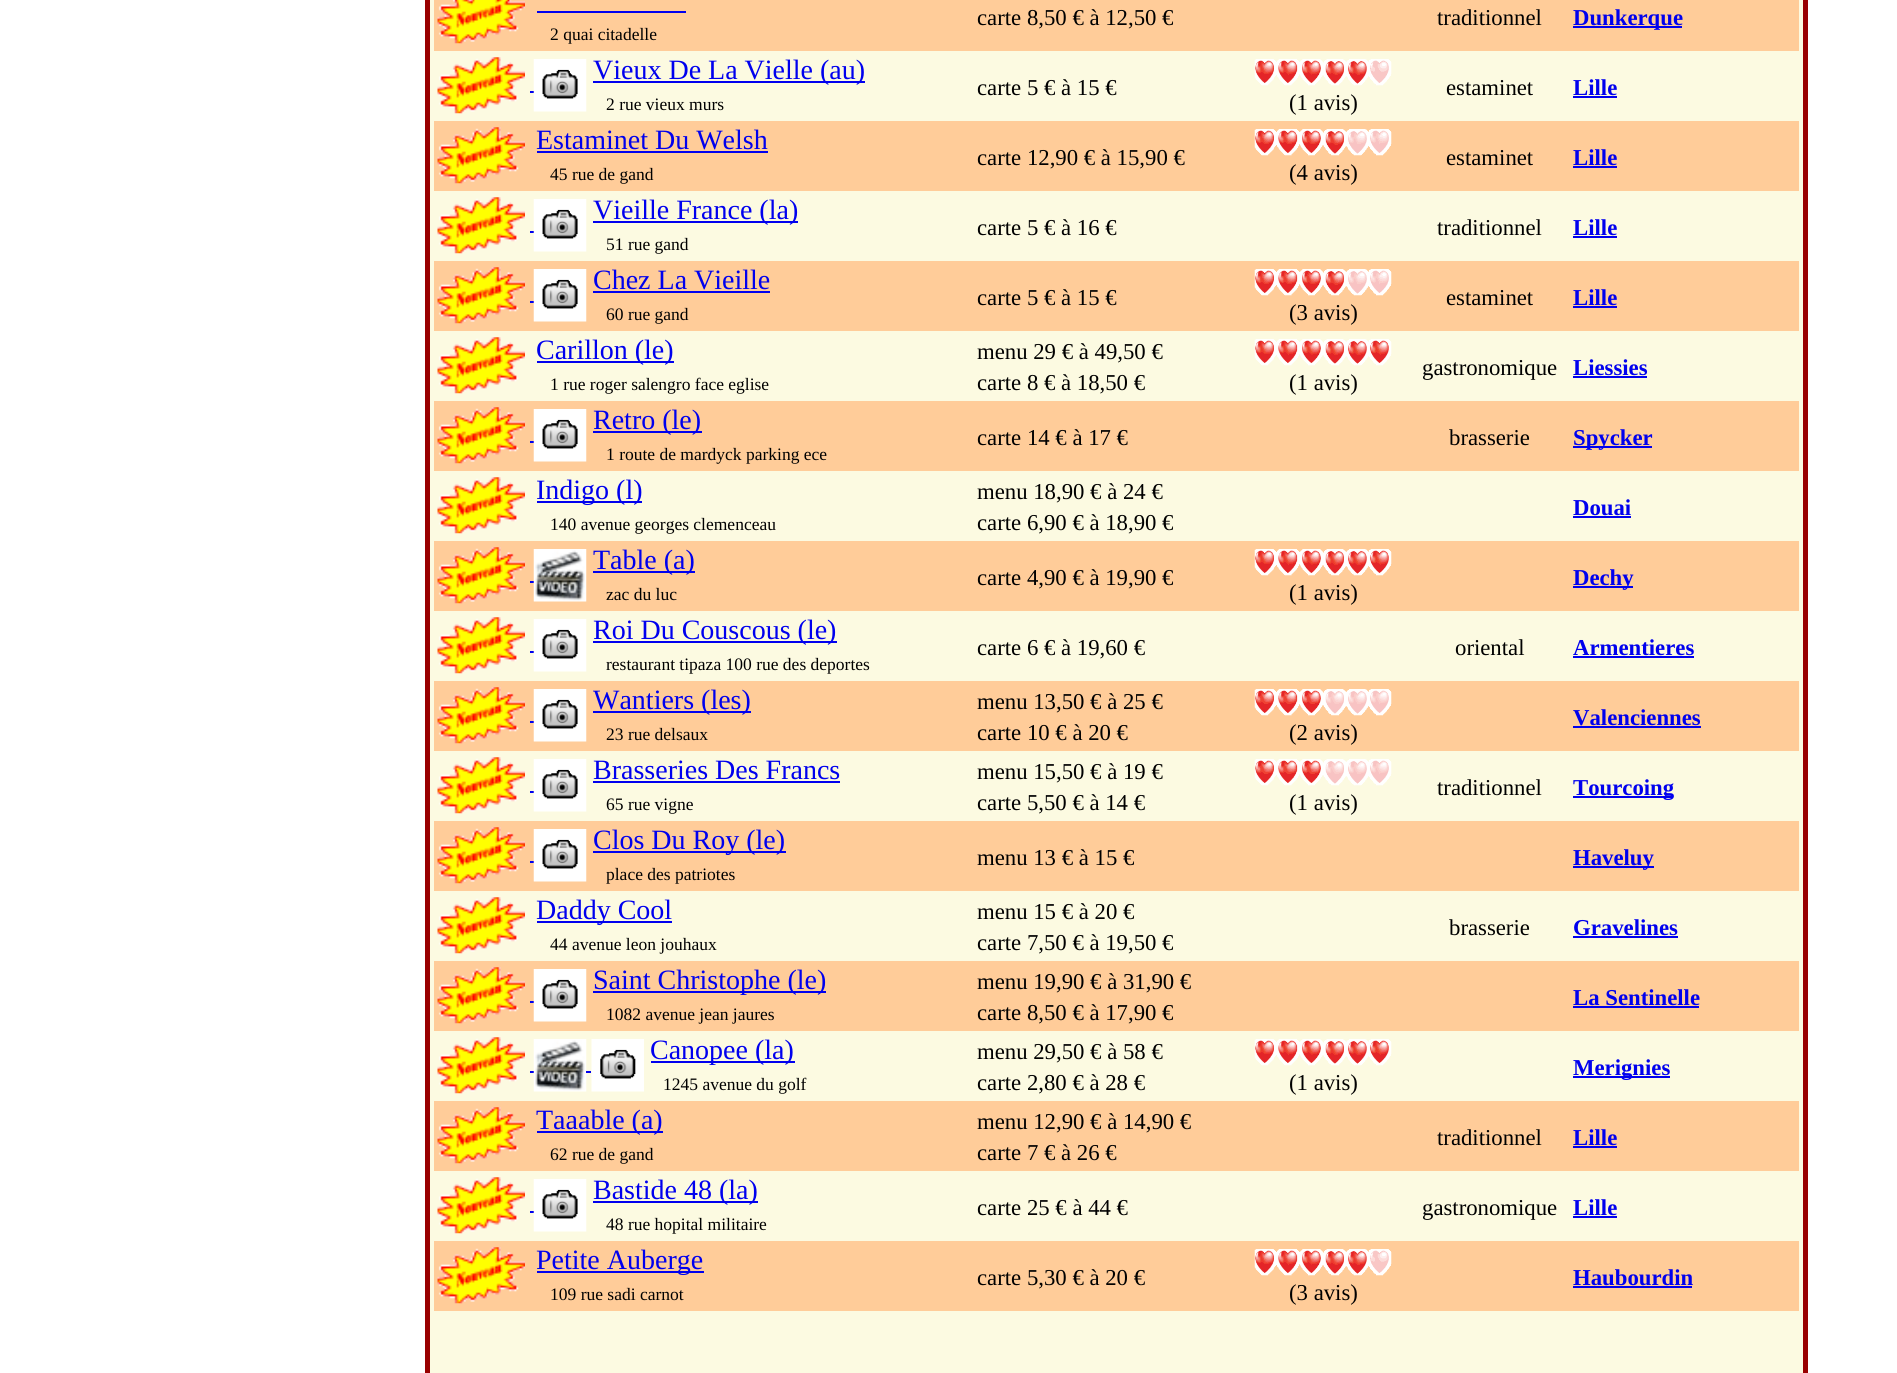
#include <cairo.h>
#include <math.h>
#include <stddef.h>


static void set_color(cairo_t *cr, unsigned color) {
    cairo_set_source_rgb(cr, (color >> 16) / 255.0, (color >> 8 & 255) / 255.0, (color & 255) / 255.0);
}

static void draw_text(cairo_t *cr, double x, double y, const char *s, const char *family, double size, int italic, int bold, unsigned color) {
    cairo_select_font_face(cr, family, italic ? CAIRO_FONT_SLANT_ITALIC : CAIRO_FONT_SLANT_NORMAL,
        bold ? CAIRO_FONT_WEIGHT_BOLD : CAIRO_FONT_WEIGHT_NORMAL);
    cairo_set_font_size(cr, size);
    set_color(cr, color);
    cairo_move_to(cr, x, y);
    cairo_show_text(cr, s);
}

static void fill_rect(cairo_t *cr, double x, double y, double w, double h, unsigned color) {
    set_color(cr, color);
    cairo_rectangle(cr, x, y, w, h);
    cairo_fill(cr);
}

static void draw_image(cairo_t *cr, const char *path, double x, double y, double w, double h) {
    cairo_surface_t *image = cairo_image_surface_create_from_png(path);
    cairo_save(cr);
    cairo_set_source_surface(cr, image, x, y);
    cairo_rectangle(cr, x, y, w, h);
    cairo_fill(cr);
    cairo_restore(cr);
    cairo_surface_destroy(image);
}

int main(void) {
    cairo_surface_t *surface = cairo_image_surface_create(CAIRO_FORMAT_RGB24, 1897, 1373);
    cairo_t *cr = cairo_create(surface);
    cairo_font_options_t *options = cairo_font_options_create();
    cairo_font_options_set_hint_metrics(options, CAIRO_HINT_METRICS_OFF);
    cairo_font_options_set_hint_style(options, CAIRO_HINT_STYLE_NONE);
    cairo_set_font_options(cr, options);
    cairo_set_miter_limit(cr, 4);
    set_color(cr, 0xFFFFFF);
    cairo_paint(cr);
    set_color(cr, 0xFCFAE1);
    cairo_rectangle(cr, 427.5, -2.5, 1378, 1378);
    cairo_fill_preserve(cr);
    set_color(cr, 0x990000);
    cairo_set_line_width(cr, 5);
    cairo_stroke(cr);
    fill_rect(cr, 434, 0, 1365, 51, 0xFFCC99);
    draw_text(cr, 977, 25, "carte 8,50 € à 12,50 €", "Liberation Serif", 22.75, 0, 0, 0x000000);
    draw_text(cr, 1437, 25, "traditionnel", "Liberation Serif", 22.75, 0, 0, 0x000000);
    fill_rect(cr, 1573, 26, 109, 2, 0x0000EE);
    draw_text(cr, 1573, 25, "Dunkerque", "Liberation Serif", 22.75, 0, 1, 0x0000EE);
    draw_image(cr, "assets/img1.png", 437, 0, 88, 44);
    fill_rect(cr, 537, 11, 149, 2, 0x0000EE);
    draw_text(cr, 550, 40, "2 quai citadelle", "Liberation Serif", 17.5, 0, 0, 0x000000);
    draw_image(cr, "assets/img2.png", 437, 57, 88, 57);
    fill_rect(cr, 530, 91, 4, 2, 0x0000EE);
    draw_image(cr, "assets/img3.png", 533, 59, 54, 53);
    fill_rect(cr, 593, 81, 272, 2, 0x0000EE);
    draw_text(cr, 593, 79, "Vieux De La Vielle (au)", "Liberation Serif", 28, 0, 0, 0x0000EE);
    draw_text(cr, 606, 110, "2 rue vieux murs", "Liberation Serif", 17.5, 0, 0, 0x000000);
    draw_text(cr, 977, 95, "carte 5 € à 15 €", "Liberation Serif", 22.75, 0, 0, 0x000000);
    draw_text(cr, 1446, 95, "estaminet", "Liberation Serif", 22.75, 0, 0, 0x000000);
    draw_text(cr, 1573, 95, "Lille", "Liberation Serif", 22.75, 0, 1, 0x0000EE);
    fill_rect(cr, 1573, 96, 44, 2, 0x0000EE);
    draw_image(cr, "assets/img4.png", 1254, 59, 138, 27);
    draw_text(cr, 1289, 110, "(1 avis)", "Liberation Serif", 22.75, 0, 0, 0x000000);
    fill_rect(cr, 434, 121, 1365, 70, 0xFFCC99);
    draw_image(cr, "assets/img5.png", 437, 127, 88, 57);
    draw_text(cr, 536, 149, "Estaminet Du Welsh", "Liberation Serif", 28, 0, 0, 0x0000EE);
    fill_rect(cr, 537, 151, 231, 2, 0x0000EE);
    draw_text(cr, 550, 180, "45 rue de gand", "Liberation Serif", 17.5, 0, 0, 0x000000);
    draw_text(cr, 977, 165, "carte 12,90 € à 15,90 €", "Liberation Serif", 22.75, 0, 0, 0x000000);
    draw_text(cr, 1446, 165, "estaminet", "Liberation Serif", 22.75, 0, 0, 0x000000);
    draw_text(cr, 1573, 165, "Lille", "Liberation Serif", 22.75, 0, 1, 0x0000EE);
    fill_rect(cr, 1573, 166, 44, 2, 0x0000EE);
    draw_image(cr, "assets/img6.png", 1254, 129, 138, 27);
    draw_text(cr, 1289, 180, "(4 avis)", "Liberation Serif", 22.75, 0, 0, 0x000000);
    draw_image(cr, "assets/img2.png", 437, 197, 88, 57);
    fill_rect(cr, 530, 231, 4, 2, 0x0000EE);
    draw_image(cr, "assets/img3.png", 533, 199, 54, 53);
    fill_rect(cr, 593, 221, 205, 2, 0x0000EE);
    draw_text(cr, 593, 219, "Vieille France (la)", "Liberation Serif", 28, 0, 0, 0x0000EE);
    draw_text(cr, 606, 250, "51 rue gand", "Liberation Serif", 17.5, 0, 0, 0x000000);
    draw_text(cr, 977, 235, "carte 5 € à 16 €", "Liberation Serif", 22.75, 0, 0, 0x000000);
    draw_text(cr, 1437, 235, "traditionnel", "Liberation Serif", 22.75, 0, 0, 0x000000);
    draw_text(cr, 1573, 235, "Lille", "Liberation Serif", 22.75, 0, 1, 0x0000EE);
    fill_rect(cr, 1573, 236, 44, 2, 0x0000EE);
    fill_rect(cr, 434, 261, 1365, 70, 0xFFCC99);
    draw_image(cr, "assets/img5.png", 437, 267, 88, 57);
    fill_rect(cr, 530, 301, 4, 2, 0x0000EE);
    draw_image(cr, "assets/img7.png", 533, 269, 54, 53);
    draw_text(cr, 593, 289, "Chez La Vieille", "Liberation Serif", 28, 0, 0, 0x0000EE);
    fill_rect(cr, 593, 291, 177, 2, 0x0000EE);
    draw_text(cr, 606, 320, "60 rue gand", "Liberation Serif", 17.5, 0, 0, 0x000000);
    draw_text(cr, 977, 305, "carte 5 € à 15 €", "Liberation Serif", 22.75, 0, 0, 0x000000);
    draw_text(cr, 1446, 305, "estaminet", "Liberation Serif", 22.75, 0, 0, 0x000000);
    draw_text(cr, 1573, 305, "Lille", "Liberation Serif", 22.75, 0, 1, 0x0000EE);
    fill_rect(cr, 1573, 306, 44, 2, 0x0000EE);
    draw_image(cr, "assets/img6.png", 1254, 269, 138, 27);
    draw_text(cr, 1289, 320, "(3 avis)", "Liberation Serif", 22.75, 0, 0, 0x000000);
    draw_image(cr, "assets/img2.png", 437, 337, 88, 57);
    fill_rect(cr, 537, 361, 137, 2, 0x0000EE);
    draw_text(cr, 536, 359, "Carillon (le)", "Liberation Serif", 28, 0, 0, 0x0000EE);
    draw_text(cr, 550, 390, "1 rue roger salengro face eglise", "Liberation Serif", 17.5, 0, 0, 0x000000);
    draw_text(cr, 977, 359, "menu 29 € à 49,50 €", "Liberation Serif", 22.75, 0, 0, 0x000000);
    draw_text(cr, 977, 390, "carte 8 € à 18,50 €", "Liberation Serif", 22.75, 0, 0, 0x000000);
    draw_text(cr, 1422, 375, "gastronomique", "Liberation Serif", 22.75, 0, 0, 0x000000);
    draw_text(cr, 1573, 375, "Liessies", "Liberation Serif", 22.75, 0, 1, 0x0000EE);
    fill_rect(cr, 1573, 376, 74, 2, 0x0000EE);
    draw_image(cr, "assets/img8.png", 1254, 339, 138, 27);
    draw_text(cr, 1289, 390, "(1 avis)", "Liberation Serif", 22.75, 0, 0, 0x000000);
    fill_rect(cr, 434, 401, 1365, 70, 0xFFCC99);
    draw_image(cr, "assets/img5.png", 437, 407, 88, 57);
    fill_rect(cr, 530, 441, 4, 2, 0x0000EE);
    draw_image(cr, "assets/img7.png", 533, 409, 54, 53);
    fill_rect(cr, 593, 431, 109, 2, 0x0000EE);
    draw_text(cr, 593, 429, "Retro (le)", "Liberation Serif", 28, 0, 0, 0x0000EE);
    draw_text(cr, 606, 460, "1 route de mardyck parking ece", "Liberation Serif", 17.5, 0, 0, 0x000000);
    draw_text(cr, 977, 445, "carte 14 € à 17 €", "Liberation Serif", 22.75, 0, 0, 0x000000);
    draw_text(cr, 1449, 445, "brasserie", "Liberation Serif", 22.75, 0, 0, 0x000000);
    fill_rect(cr, 1573, 446, 79, 2, 0x0000EE);
    draw_text(cr, 1573, 445, "Spycker", "Liberation Serif", 22.75, 0, 1, 0x0000EE);
    draw_image(cr, "assets/img2.png", 437, 477, 88, 57);
    fill_rect(cr, 537, 501, 105, 2, 0x0000EE);
    draw_text(cr, 536, 499, "Indigo (l)", "Liberation Serif", 28, 0, 0, 0x0000EE);
    draw_text(cr, 550, 530, "140 avenue georges clemenceau", "Liberation Serif", 17.5, 0, 0, 0x000000);
    draw_text(cr, 977, 499, "menu 18,90 € à 24 €", "Liberation Serif", 22.75, 0, 0, 0x000000);
    draw_text(cr, 977, 530, "carte 6,90 € à 18,90 €", "Liberation Serif", 22.75, 0, 0, 0x000000);
    draw_text(cr, 1573, 515, "Douai", "Liberation Serif", 22.75, 0, 1, 0x0000EE);
    fill_rect(cr, 1573, 516, 58, 2, 0x0000EE);
    fill_rect(cr, 434, 541, 1365, 70, 0xFFCC99);
    draw_image(cr, "assets/img5.png", 437, 547, 88, 57);
    fill_rect(cr, 530, 581, 4, 2, 0x0000EE);
    draw_image(cr, "assets/img9.png", 533, 549, 54, 53);
    fill_rect(cr, 593, 571, 102, 2, 0x0000EE);
    draw_text(cr, 593, 569, "Table (a)", "Liberation Serif", 28, 0, 0, 0x0000EE);
    draw_text(cr, 606, 600, "zac du luc", "Liberation Serif", 17.5, 0, 0, 0x000000);
    draw_text(cr, 977, 585, "carte 4,90 € à 19,90 €", "Liberation Serif", 22.75, 0, 0, 0x000000);
    fill_rect(cr, 1573, 586, 60, 2, 0x0000EE);
    draw_text(cr, 1573, 585, "Dechy", "Liberation Serif", 22.75, 0, 1, 0x0000EE);
    draw_image(cr, "assets/img10.png", 1254, 549, 138, 27);
    draw_text(cr, 1289, 600, "(1 avis)", "Liberation Serif", 22.75, 0, 0, 0x000000);
    draw_image(cr, "assets/img11.png", 437, 617, 88, 57);
    fill_rect(cr, 530, 651, 4, 2, 0x0000EE);
    draw_image(cr, "assets/img3.png", 533, 619, 54, 53);
    fill_rect(cr, 593, 641, 244, 2, 0x0000EE);
    draw_text(cr, 593, 639, "Roi Du Couscous (le)", "Liberation Serif", 28, 0, 0, 0x0000EE);
    draw_text(cr, 606, 670, "restaurant tipaza 100 rue des deportes", "Liberation Serif", 17.5, 0, 0, 0x000000);
    draw_text(cr, 977, 655, "carte 6 € à 19,60 €", "Liberation Serif", 22.75, 0, 0, 0x000000);
    draw_text(cr, 1455, 655, "oriental", "Liberation Serif", 22.75, 0, 0, 0x000000);
    draw_text(cr, 1573, 655, "Armentieres", "Liberation Serif", 22.75, 0, 1, 0x0000EE);
    fill_rect(cr, 1573, 656, 121, 2, 0x0000EE);
    fill_rect(cr, 434, 681, 1365, 70, 0xFFCC99);
    draw_image(cr, "assets/img5.png", 437, 687, 88, 57);
    fill_rect(cr, 530, 721, 4, 2, 0x0000EE);
    draw_image(cr, "assets/img7.png", 533, 689, 54, 53);
    fill_rect(cr, 593, 711, 158, 2, 0x0000EE);
    draw_text(cr, 593, 709, "Wantiers (les)", "Liberation Serif", 28, 0, 0, 0x0000EE);
    draw_text(cr, 606, 740, "23 rue delsaux", "Liberation Serif", 17.5, 0, 0, 0x000000);
    draw_text(cr, 977, 709, "menu 13,50 € à 25 €", "Liberation Serif", 22.75, 0, 0, 0x000000);
    draw_text(cr, 977, 740, "carte 10 € à 20 €", "Liberation Serif", 22.75, 0, 0, 0x000000);
    draw_text(cr, 1573, 725, "Valenciennes", "Liberation Serif", 22.75, 0, 1, 0x0000EE);
    fill_rect(cr, 1573, 726, 128, 2, 0x0000EE);
    draw_image(cr, "assets/img12.png", 1254, 689, 138, 27);
    draw_text(cr, 1289, 740, "(2 avis)", "Liberation Serif", 22.75, 0, 0, 0x000000);
    draw_image(cr, "assets/img2.png", 437, 757, 88, 57);
    fill_rect(cr, 530, 791, 4, 2, 0x0000EE);
    draw_image(cr, "assets/img3.png", 533, 759, 54, 53);
    draw_text(cr, 593, 779, "Brasseries Des Francs", "Liberation Serif", 28, 0, 0, 0x0000EE);
    fill_rect(cr, 593, 781, 247, 2, 0x0000EE);
    draw_text(cr, 606, 810, "65 rue vigne", "Liberation Serif", 17.5, 0, 0, 0x000000);
    draw_text(cr, 977, 779, "menu 15,50 € à 19 €", "Liberation Serif", 22.75, 0, 0, 0x000000);
    draw_text(cr, 977, 810, "carte 5,50 € à 14 €", "Liberation Serif", 22.75, 0, 0, 0x000000);
    draw_text(cr, 1437, 795, "traditionnel", "Liberation Serif", 22.75, 0, 0, 0x000000);
    fill_rect(cr, 1573, 796, 100, 2, 0x0000EE);
    draw_text(cr, 1573, 795, "Tourcoing", "Liberation Serif", 22.75, 0, 1, 0x0000EE);
    draw_image(cr, "assets/img13.png", 1254, 759, 138, 27);
    draw_text(cr, 1289, 810, "(1 avis)", "Liberation Serif", 22.75, 0, 0, 0x000000);
    fill_rect(cr, 434, 821, 1365, 70, 0xFFCC99);
    draw_image(cr, "assets/img5.png", 437, 827, 88, 57);
    fill_rect(cr, 530, 861, 4, 2, 0x0000EE);
    draw_image(cr, "assets/img7.png", 533, 829, 54, 53);
    fill_rect(cr, 593, 851, 193, 2, 0x0000EE);
    draw_text(cr, 593, 849, "Clos Du Roy (le)", "Liberation Serif", 28, 0, 0, 0x0000EE);
    draw_text(cr, 606, 880, "place des patriotes", "Liberation Serif", 17.5, 0, 0, 0x000000);
    draw_text(cr, 977, 865, "menu 13 € à 15 €", "Liberation Serif", 22.75, 0, 0, 0x000000);
    fill_rect(cr, 1573, 866, 81, 2, 0x0000EE);
    draw_text(cr, 1573, 865, "Haveluy", "Liberation Serif", 22.75, 0, 1, 0x0000EE);
    draw_image(cr, "assets/img2.png", 437, 897, 88, 57);
    fill_rect(cr, 537, 921, 135, 2, 0x0000EE);
    draw_text(cr, 536, 919, "Daddy Cool", "Liberation Serif", 28, 0, 0, 0x0000EE);
    draw_text(cr, 550, 950, "44 avenue leon jouhaux", "Liberation Serif", 17.5, 0, 0, 0x000000);
    draw_text(cr, 977, 919, "menu 15 € à 20 €", "Liberation Serif", 22.75, 0, 0, 0x000000);
    draw_text(cr, 977, 950, "carte 7,50 € à 19,50 €", "Liberation Serif", 22.75, 0, 0, 0x000000);
    draw_text(cr, 1449, 935, "brasserie", "Liberation Serif", 22.75, 0, 0, 0x000000);
    draw_text(cr, 1573, 935, "Gravelines", "Liberation Serif", 22.75, 0, 1, 0x0000EE);
    fill_rect(cr, 1573, 936, 105, 2, 0x0000EE);
    fill_rect(cr, 434, 961, 1365, 70, 0xFFCC99);
    draw_image(cr, "assets/img5.png", 437, 967, 88, 57);
    fill_rect(cr, 530, 1001, 4, 2, 0x0000EE);
    draw_image(cr, "assets/img7.png", 533, 969, 54, 53);
    fill_rect(cr, 593, 991, 233, 2, 0x0000EE);
    draw_text(cr, 593, 989, "Saint Christophe (le)", "Liberation Serif", 28, 0, 0, 0x0000EE);
    draw_text(cr, 606, 1020, "1082 avenue jean jaures", "Liberation Serif", 17.5, 0, 0, 0x000000);
    draw_text(cr, 977, 989, "menu 19,90 € à 31,90 €", "Liberation Serif", 22.75, 0, 0, 0x000000);
    draw_text(cr, 977, 1020, "carte 8,50 € à 17,90 €", "Liberation Serif", 22.75, 0, 0, 0x000000);
    draw_text(cr, 1573, 1005, "La Sentinelle", "Liberation Serif", 22.75, 0, 1, 0x0000EE);
    fill_rect(cr, 1573, 1006, 126, 2, 0x0000EE);
    draw_image(cr, "assets/img2.png", 437, 1037, 88, 57);
    fill_rect(cr, 530, 1071, 4, 2, 0x0000EE);
    draw_image(cr, "assets/img14.png", 533, 1039, 54, 53);
    fill_rect(cr, 586, 1071, 5, 2, 0x0000EE);
    draw_image(cr, "assets/img15.png", 591, 1039, 53, 53);
    fill_rect(cr, 651, 1061, 144, 2, 0x0000EE);
    draw_text(cr, 650, 1059, "Canopee (la)", "Liberation Serif", 28, 0, 0, 0x0000EE);
    draw_text(cr, 663, 1090, "1245 avenue du golf", "Liberation Serif", 17.5, 0, 0, 0x000000);
    draw_text(cr, 977, 1059, "menu 29,50 € à 58 €", "Liberation Serif", 22.75, 0, 0, 0x000000);
    draw_text(cr, 977, 1090, "carte 2,80 € à 28 €", "Liberation Serif", 22.75, 0, 0, 0x000000);
    fill_rect(cr, 1573, 1076, 97, 2, 0x0000EE);
    draw_text(cr, 1573, 1075, "Merignies", "Liberation Serif", 22.75, 0, 1, 0x0000EE);
    draw_image(cr, "assets/img8.png", 1254, 1039, 138, 27);
    draw_text(cr, 1289, 1090, "(1 avis)", "Liberation Serif", 22.75, 0, 0, 0x000000);
    fill_rect(cr, 434, 1101, 1365, 70, 0xFFCC99);
    draw_image(cr, "assets/img5.png", 437, 1107, 88, 57);
    fill_rect(cr, 537, 1131, 126, 2, 0x0000EE);
    draw_text(cr, 536, 1129, "Taaable (a)", "Liberation Serif", 28, 0, 0, 0x0000EE);
    draw_text(cr, 550, 1160, "62 rue de gand", "Liberation Serif", 17.5, 0, 0, 0x000000);
    draw_text(cr, 977, 1129, "menu 12,90 € à 14,90 €", "Liberation Serif", 22.75, 0, 0, 0x000000);
    draw_text(cr, 977, 1160, "carte 7 € à 26 €", "Liberation Serif", 22.75, 0, 0, 0x000000);
    draw_text(cr, 1437, 1145, "traditionnel", "Liberation Serif", 22.75, 0, 0, 0x000000);
    draw_text(cr, 1573, 1145, "Lille", "Liberation Serif", 22.75, 0, 1, 0x0000EE);
    fill_rect(cr, 1573, 1146, 44, 2, 0x0000EE);
    draw_image(cr, "assets/img2.png", 437, 1177, 88, 57);
    fill_rect(cr, 530, 1211, 4, 2, 0x0000EE);
    draw_image(cr, "assets/img3.png", 533, 1179, 54, 53);
    fill_rect(cr, 593, 1201, 165, 2, 0x0000EE);
    draw_text(cr, 593, 1199, "Bastide 48 (la)", "Liberation Serif", 28, 0, 0, 0x0000EE);
    draw_text(cr, 606, 1230, "48 rue hopital militaire", "Liberation Serif", 17.5, 0, 0, 0x000000);
    draw_text(cr, 977, 1215, "carte 25 € à 44 €", "Liberation Serif", 22.75, 0, 0, 0x000000);
    draw_text(cr, 1422, 1215, "gastronomique", "Liberation Serif", 22.75, 0, 0, 0x000000);
    draw_text(cr, 1573, 1215, "Lille", "Liberation Serif", 22.75, 0, 1, 0x0000EE);
    fill_rect(cr, 1573, 1216, 44, 2, 0x0000EE);
    fill_rect(cr, 434, 1241, 1365, 70, 0xFFCC99);
    draw_image(cr, "assets/img5.png", 437, 1247, 88, 57);
    fill_rect(cr, 537, 1271, 167, 2, 0x0000EE);
    draw_text(cr, 536, 1269, "Petite Auberge", "Liberation Serif", 28, 0, 0, 0x0000EE);
    draw_text(cr, 550, 1300, "109 rue sadi carnot", "Liberation Serif", 17.5, 0, 0, 0x000000);
    draw_text(cr, 977, 1285, "carte 5,30 € à 20 €", "Liberation Serif", 22.75, 0, 0, 0x000000);
    draw_text(cr, 1573, 1285, "Haubourdin", "Liberation Serif", 22.75, 0, 1, 0x0000EE);
    fill_rect(cr, 1573, 1286, 119, 2, 0x0000EE);
    draw_image(cr, "assets/img16.png", 1254, 1249, 138, 27);
    draw_text(cr, 1289, 1300, "(3 avis)", "Liberation Serif", 22.75, 0, 0, 0x000000);
    cairo_surface_write_to_png(surface, "output.png");
    cairo_font_options_destroy(options);
    cairo_destroy(cr);
    cairo_surface_destroy(surface);
    return 0;
}
